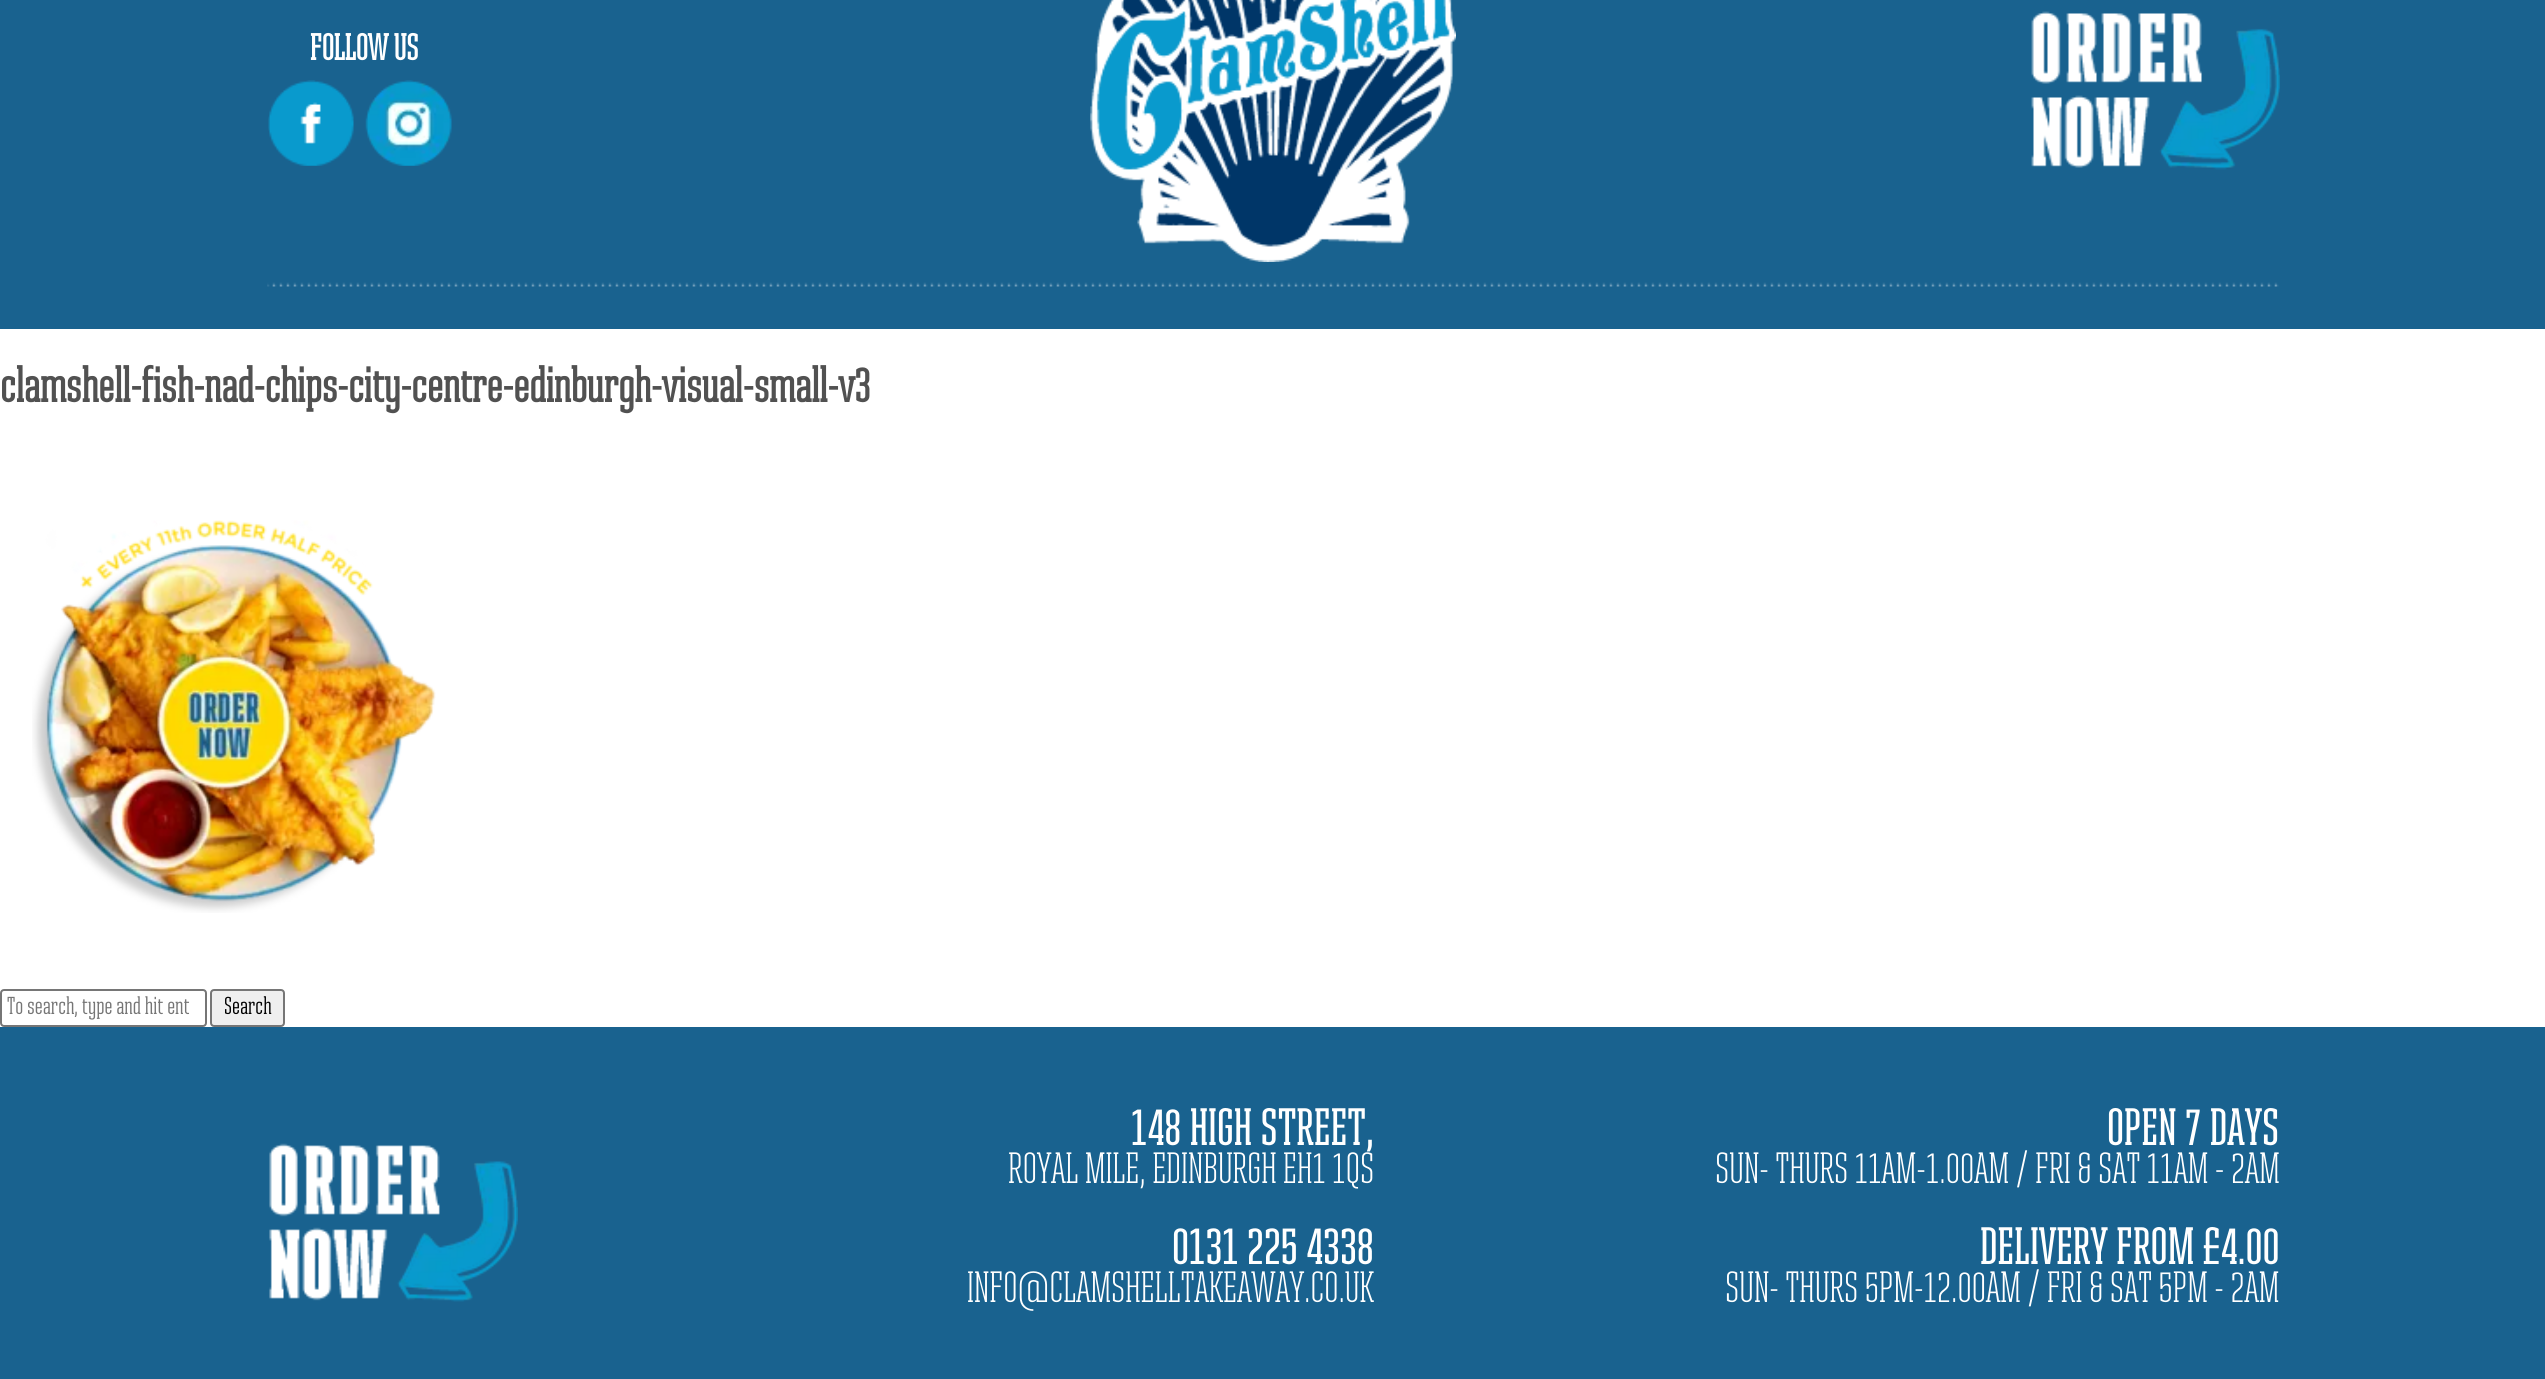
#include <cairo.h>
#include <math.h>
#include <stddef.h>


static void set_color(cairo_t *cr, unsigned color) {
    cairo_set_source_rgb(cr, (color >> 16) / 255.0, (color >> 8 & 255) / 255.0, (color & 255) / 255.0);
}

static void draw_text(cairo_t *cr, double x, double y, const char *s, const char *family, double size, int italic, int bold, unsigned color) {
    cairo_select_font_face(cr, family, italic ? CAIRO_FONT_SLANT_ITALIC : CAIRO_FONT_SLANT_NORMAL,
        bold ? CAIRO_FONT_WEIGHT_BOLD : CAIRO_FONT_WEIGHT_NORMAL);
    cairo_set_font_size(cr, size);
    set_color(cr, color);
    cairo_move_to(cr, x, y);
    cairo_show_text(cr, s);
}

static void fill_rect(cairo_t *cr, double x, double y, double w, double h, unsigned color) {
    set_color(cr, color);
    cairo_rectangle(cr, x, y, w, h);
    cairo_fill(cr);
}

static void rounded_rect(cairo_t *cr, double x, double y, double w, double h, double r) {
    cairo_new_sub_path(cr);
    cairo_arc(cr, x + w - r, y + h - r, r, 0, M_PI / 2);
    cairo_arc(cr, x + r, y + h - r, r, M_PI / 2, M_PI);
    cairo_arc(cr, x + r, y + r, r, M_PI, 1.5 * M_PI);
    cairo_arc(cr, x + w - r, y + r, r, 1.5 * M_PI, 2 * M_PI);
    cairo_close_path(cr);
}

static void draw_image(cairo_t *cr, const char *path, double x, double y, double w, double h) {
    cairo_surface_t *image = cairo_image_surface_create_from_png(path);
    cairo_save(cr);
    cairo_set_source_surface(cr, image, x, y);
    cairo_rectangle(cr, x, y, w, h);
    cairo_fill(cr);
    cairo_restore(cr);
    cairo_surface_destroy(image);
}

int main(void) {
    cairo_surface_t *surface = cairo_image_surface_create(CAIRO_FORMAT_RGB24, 2545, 1379);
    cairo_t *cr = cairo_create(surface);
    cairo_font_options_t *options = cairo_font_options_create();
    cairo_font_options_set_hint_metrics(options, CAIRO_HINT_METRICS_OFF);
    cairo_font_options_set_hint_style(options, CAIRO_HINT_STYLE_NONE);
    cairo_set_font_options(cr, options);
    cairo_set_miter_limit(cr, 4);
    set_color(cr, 0xFFFFFF);
    cairo_paint(cr);
    fill_rect(cr, 0, 0, 2545, 329, 0x19628F);
    draw_image(cr, "assets/img1.png", 267, 282, 2012, 5);
    draw_image(cr, "assets/img2.png", 1090, 0, 366, 262);
    draw_text(cr, 310, 60, "FOLLOW US", "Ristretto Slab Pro", 37, 0, 1, 0xFFFFFF);
    draw_image(cr, "assets/img3.png", 268, 80, 86, 86);
    draw_image(cr, "assets/img4.png", 365, 80, 87, 86);
    draw_image(cr, "assets/img5.png", 2031, 11, 249, 159);
    draw_text(cr, 0, 402, "clamshell-fish-nad-chips-city-centre-edinburgh-visual-small-v3", "Ristretto Slab Pro", 49, 0, 1, 0x515151);
    draw_image(cr, "assets/img6.png", 32, 520, 404, 393);
    rounded_rect(cr, 1, 990, 205, 36, 3);
    set_color(cr, 0x767676);
    cairo_stroke(cr);
    draw_text(cr, 7, 1014, "To search, type and hit ent", "Ristretto Slab Pro", 24.5, 0, 0, 0x757575);
    set_color(cr, 0xEFEFEF);
    rounded_rect(cr, 211, 990, 73, 36, 3);
    cairo_fill_preserve(cr);
    set_color(cr, 0x767676);
    cairo_stroke(cr);
    draw_text(cr, 224, 1014, "Search", "Ristretto Slab Pro", 24.5, 0, 0, 0x000000);
    fill_rect(cr, 0, 1027, 2545, 352, 0x19628F);
    draw_image(cr, "assets/img7.png", 269, 1143, 249, 159);
    draw_text(cr, 1131, 1145, "148 HIGH STREET,", "Ristretto Slab Pro Medium", 52.5, 0, 0, 0xFFFFFF);
    draw_text(cr, 1008, 1183, "ROYAL MILE, EDINBURGH EH1 1QS", "Ristretto Slab Pro Light", 43.75, 0, 0, 0xFFFFFF);
    draw_text(cr, 1172, 1264, "0131 225 4338", "Ristretto Slab Pro Medium", 52.5, 0, 0, 0xFFFFFF);
    draw_text(cr, 967, 1302, "INFO@CLAMSHELLTAKEAWAY.CO.UK", "Ristretto Slab Pro Light", 43.75, 0, 0, 0xFFFFFF);
    draw_text(cr, 2107, 1145, "OPEN 7 DAYS", "Ristretto Slab Pro Medium", 52.5, 0, 0, 0xFFFFFF);
    draw_text(cr, 1715, 1183, "SUN- THURS 11AM-1.00AM / FRI & SAT 11AM - 2AM", "Ristretto Slab Pro Light", 43.75, 0, 0, 0xFFFFFF);
    draw_text(cr, 1980, 1264, "DELIVERY FROM £4.00", "Ristretto Slab Pro Medium", 52.5, 0, 0, 0xFFFFFF);
    draw_text(cr, 1725, 1302, "SUN- THURS 5PM-12.00AM / FRI & SAT 5PM - 2AM", "Ristretto Slab Pro Light", 43.75, 0, 0, 0xFFFFFF);
    cairo_surface_write_to_png(surface, "output.png");
    cairo_font_options_destroy(options);
    cairo_destroy(cr);
    cairo_surface_destroy(surface);
    return 0;
}
